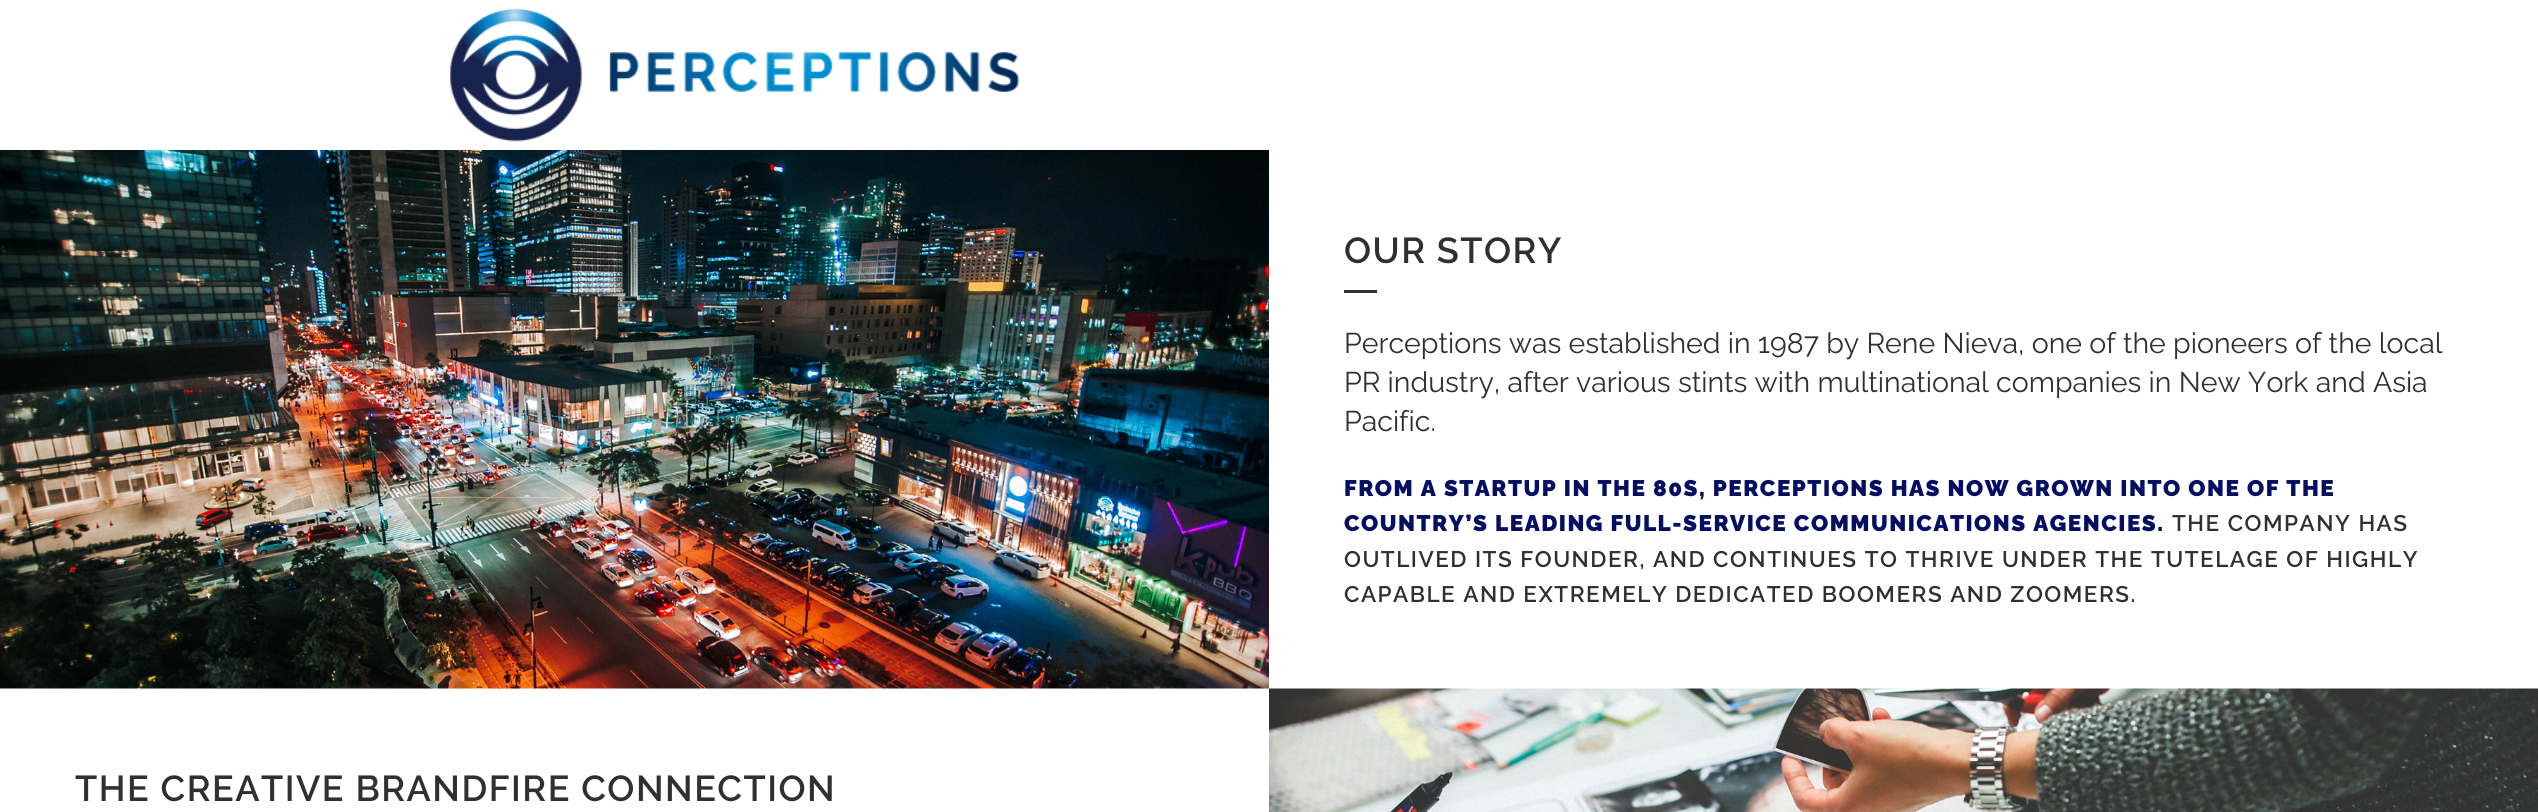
#include <cairo.h>
#include <math.h>
#include <stddef.h>


static void set_color(cairo_t *cr, unsigned color) {
    cairo_set_source_rgb(cr, (color >> 16) / 255.0, (color >> 8 & 255) / 255.0, (color & 255) / 255.0);
}

static void draw_text(cairo_t *cr, double x, double y, const char *s, const char *family, double size, int italic, int bold, unsigned color) {
    cairo_select_font_face(cr, family, italic ? CAIRO_FONT_SLANT_ITALIC : CAIRO_FONT_SLANT_NORMAL,
        bold ? CAIRO_FONT_WEIGHT_BOLD : CAIRO_FONT_WEIGHT_NORMAL);
    cairo_set_font_size(cr, size);
    set_color(cr, color);
    cairo_move_to(cr, x, y);
    cairo_show_text(cr, s);
}

static void draw_spaced(cairo_t *cr, double x, double y, const char *s, double letter, double word) {
    cairo_move_to(cr, x, y);
    while (*s) {
        char ch[5] = {0};
        int n = 0;
        do ch[n++] = *s++; while ((*s & 0xC0) == 0x80);
        cairo_show_text(cr, ch);
        cairo_rel_move_to(cr, letter + word * (*ch == ' '), 0);
    }
}

static void fill_rect(cairo_t *cr, double x, double y, double w, double h, unsigned color) {
    set_color(cr, color);
    cairo_rectangle(cr, x, y, w, h);
    cairo_fill(cr);
}

static void draw_image(cairo_t *cr, const char *path, double x, double y, double w, double h) {
    cairo_surface_t *image = cairo_image_surface_create_from_png(path);
    cairo_save(cr);
    cairo_set_source_surface(cr, image, x, y);
    cairo_rectangle(cr, x, y, w, h);
    cairo_fill(cr);
    cairo_restore(cr);
    cairo_surface_destroy(image);
}

int main(void) {
    cairo_surface_t *surface = cairo_image_surface_create(CAIRO_FORMAT_RGB24, 2538, 812);
    cairo_t *cr = cairo_create(surface);
    cairo_font_options_t *options = cairo_font_options_create();
    cairo_font_options_set_hint_metrics(options, CAIRO_HINT_METRICS_OFF);
    cairo_font_options_set_hint_style(options, CAIRO_HINT_STYLE_NONE);
    cairo_set_font_options(cr, options);
    cairo_set_miter_limit(cr, 4);
    set_color(cr, 0xFFFFFF);
    cairo_paint(cr);
    draw_image(cr, "assets/img1.png", 450, 8, 570, 134);
    draw_image(cr, "assets/img2.png", 0, 150, 1269, 539);
    cairo_select_font_face(cr, "Raleway SemiBold", CAIRO_FONT_SLANT_NORMAL, CAIRO_FONT_WEIGHT_NORMAL);
    cairo_set_font_size(cr, 36);
    set_color(cr, 0x303030);
    draw_spaced(cr, 1344, 263, "OUR STORY", 1.5, 0);
    fill_rect(cr, 1344, 290, 33, 3, 0x303030);
    draw_text(cr, 1344, 353, "Perceptions was established in 1987 by Rene Nieva, one of the pioneers of the local", "Raleway", 28.5, 0, 0, 0x303030);
    draw_text(cr, 1344, 392, "PR industry, after various stints with multinational companies in New York and Asia", "Raleway", 28.5, 0, 0, 0x303030);
    draw_text(cr, 1344, 431, "Pacific.", "Raleway", 28.5, 0, 0, 0x303030);
    cairo_select_font_face(cr, "Raleway Black", CAIRO_FONT_SLANT_NORMAL, CAIRO_FONT_WEIGHT_NORMAL);
    cairo_set_font_size(cr, 22.5);
    set_color(cr, 0x040F63);
    draw_spaced(cr, 1344, 496, "FROM A STARTUP IN THE 80S, PERCEPTIONS HAS NOW GROWN INTO ONE OF THE", 1.5, 0);
    draw_spaced(cr, 1344, 531, "COUNTRY’S LEADING FULL-SERVICE COMMUNICATIONS AGENCIES.", 1.5, 0);
    cairo_select_font_face(cr, "Raleway SemiBold", CAIRO_FONT_SLANT_NORMAL, CAIRO_FONT_WEIGHT_NORMAL);
    set_color(cr, 0x303030);
    draw_spaced(cr, 2172, 531, "THE COMPANY HAS", 1.5, 0);
    draw_spaced(cr, 1344, 567, "OUTLIVED ITS FOUNDER, AND CONTINUES TO THRIVE UNDER THE TUTELAGE OF HIGHLY", 1.5, 0);
    draw_spaced(cr, 1344, 602, "CAPABLE AND EXTREMELY DEDICATED BOOMERS AND ZOOMERS.", 1.5, 0);
    cairo_set_font_size(cr, 36);
    draw_spaced(cr, 75, 801, "THE CREATIVE BRANDFIRE CONNECTION", 1.5, 0);
    draw_image(cr, "assets/img3.png", 1269, 688, 1269, 124);
    cairo_surface_write_to_png(surface, "output.png");
    cairo_font_options_destroy(options);
    cairo_destroy(cr);
    cairo_surface_destroy(surface);
    return 0;
}
